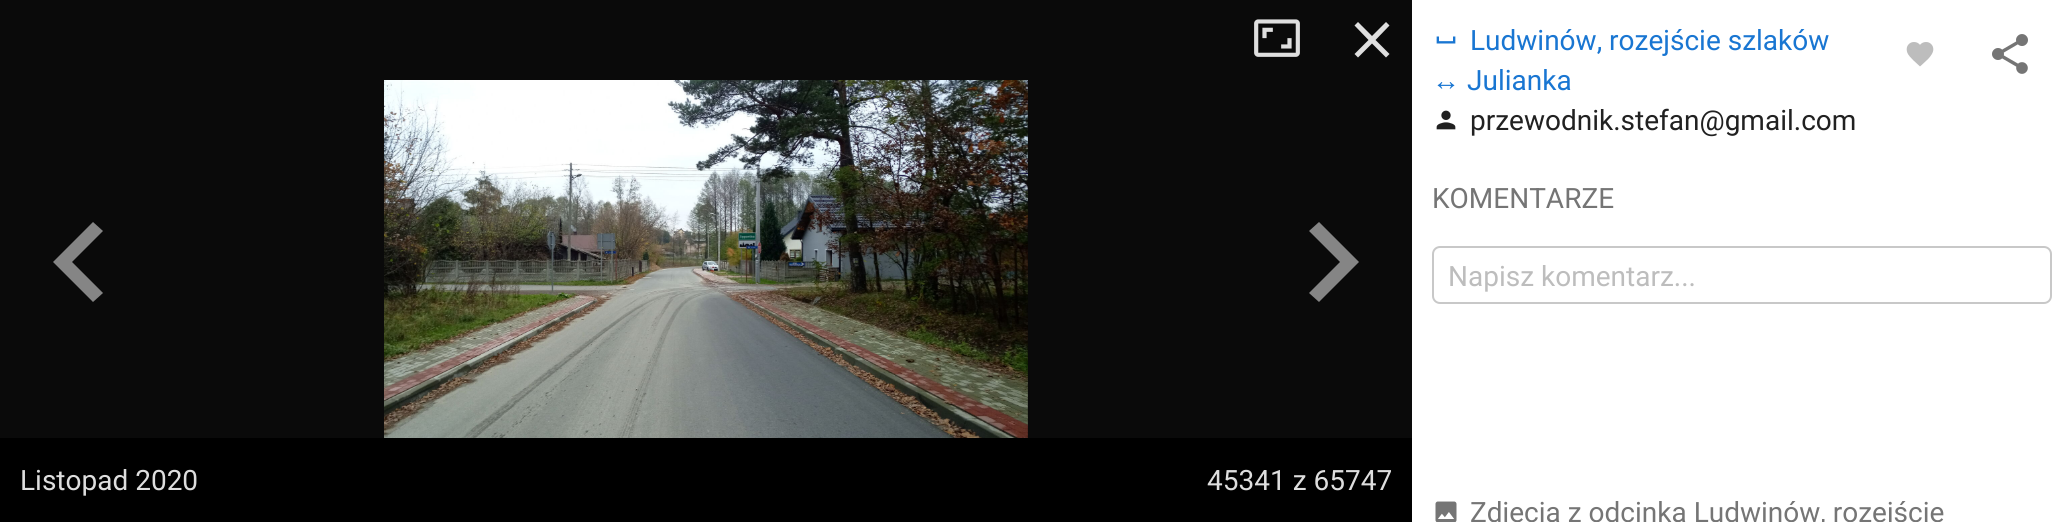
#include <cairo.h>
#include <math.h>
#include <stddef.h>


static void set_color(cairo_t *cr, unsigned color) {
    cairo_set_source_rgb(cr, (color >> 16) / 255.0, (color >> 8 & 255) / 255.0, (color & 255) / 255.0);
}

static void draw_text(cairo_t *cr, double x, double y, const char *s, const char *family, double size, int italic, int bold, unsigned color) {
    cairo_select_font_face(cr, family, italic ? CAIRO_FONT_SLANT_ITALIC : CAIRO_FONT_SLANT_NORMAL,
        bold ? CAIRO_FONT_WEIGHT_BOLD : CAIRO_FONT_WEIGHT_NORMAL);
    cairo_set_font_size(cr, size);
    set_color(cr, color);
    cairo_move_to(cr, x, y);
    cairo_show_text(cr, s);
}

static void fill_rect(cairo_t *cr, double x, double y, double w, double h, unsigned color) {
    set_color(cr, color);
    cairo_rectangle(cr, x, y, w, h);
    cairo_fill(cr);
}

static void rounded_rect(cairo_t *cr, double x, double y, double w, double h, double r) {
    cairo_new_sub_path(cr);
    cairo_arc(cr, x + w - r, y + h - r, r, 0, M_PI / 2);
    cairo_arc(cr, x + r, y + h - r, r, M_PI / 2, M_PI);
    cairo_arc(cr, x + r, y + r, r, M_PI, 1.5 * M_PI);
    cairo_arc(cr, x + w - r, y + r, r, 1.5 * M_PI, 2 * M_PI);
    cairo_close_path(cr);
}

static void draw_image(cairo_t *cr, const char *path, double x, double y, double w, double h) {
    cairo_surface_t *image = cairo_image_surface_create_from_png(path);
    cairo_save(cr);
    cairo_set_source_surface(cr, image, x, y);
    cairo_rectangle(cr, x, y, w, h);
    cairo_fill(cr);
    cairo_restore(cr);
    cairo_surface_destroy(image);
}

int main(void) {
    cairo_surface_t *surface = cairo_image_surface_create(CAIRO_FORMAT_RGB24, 2072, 522);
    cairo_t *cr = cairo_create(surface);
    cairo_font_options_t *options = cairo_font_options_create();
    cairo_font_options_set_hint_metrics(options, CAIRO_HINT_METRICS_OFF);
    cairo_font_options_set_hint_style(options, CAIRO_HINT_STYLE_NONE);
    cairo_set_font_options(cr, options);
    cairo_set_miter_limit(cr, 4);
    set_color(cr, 0x0A0A0A);
    cairo_paint(cr);
    draw_image(cr, "assets/img1.png", 1254, 19, 46, 38);
    set_color(cr, 0xDFDFDF);
    cairo_new_path(cr);
    cairo_move_to(cr, 1389.5, 25.5);
    cairo_line_to(cr, 1386, 22);
    cairo_line_to(cr, 1372, 36);
    cairo_line_to(cr, 1358, 22);
    cairo_line_to(cr, 1354.5, 25.5);
    cairo_line_to(cr, 1368.5, 40);
    cairo_line_to(cr, 1354.5, 54);
    cairo_line_to(cr, 1358, 57.5);
    cairo_line_to(cr, 1372, 43.5);
    cairo_line_to(cr, 1386, 57.5);
    cairo_line_to(cr, 1389.5, 54);
    cairo_line_to(cr, 1375.5, 40);
    cairo_close_path(cr);
    cairo_fill(cr);
    set_color(cr, 0x858585);
    cairo_new_path(cr);
    cairo_move_to(cr, 103, 231);
    cairo_line_to(cr, 93, 222);
    cairo_line_to(cr, 53, 262);
    cairo_line_to(cr, 93, 302);
    cairo_line_to(cr, 103, 293);
    cairo_line_to(cr, 72, 262);
    cairo_close_path(cr);
    cairo_fill(cr);
    draw_image(cr, "assets/img2.png", 384, 80, 644, 358);
    cairo_new_path(cr);
    cairo_move_to(cr, 1319, 222);
    cairo_line_to(cr, 1309, 231);
    cairo_line_to(cr, 1340, 262);
    cairo_line_to(cr, 1309, 293);
    cairo_line_to(cr, 1319, 302);
    cairo_line_to(cr, 1359, 262);
    cairo_close_path(cr);
    cairo_fill(cr);
    fill_rect(cr, 0, 438, 1412, 84, 0x000000);
    draw_text(cr, 20, 490, "Listopad 2020", "Roboto", 28, 0, 0, 0xDEDEDE);
    draw_text(cr, 1207, 490, "45341 z 65747", "Roboto", 28, 0, 0, 0xDEDEDE);
    fill_rect(cr, 1412, 0, 660, 522, 0xFFFFFF);
    draw_image(cr, "assets/img3.png", 1436, 36, 20, 8);
    draw_text(cr, 1470, 50, "Ludwinów, rozejście szlaków", "Roboto", 28, 0, 0, 0x1976D2);
    draw_text(cr, 1432, 90, "↔", "Liberation Sans", 28, 0, 0, 0x1976D2);
    draw_text(cr, 1467, 90, "Julianka", "Roboto", 28, 0, 0, 0x1976D2);
    draw_image(cr, "assets/img4.png", 1436, 110, 20, 20);
    draw_text(cr, 1470, 130, "przewodnik.stefan@gmail.com", "Roboto", 28, 0, 0, 0x212121);
    draw_image(cr, "assets/img5.png", 1906, 42, 28, 25);
    draw_image(cr, "assets/img6.png", 1992, 34, 36, 40);
    draw_text(cr, 1432, 208, "KOMENTARZE", "Roboto", 28, 0, 0, 0x757575);
    rounded_rect(cr, 1433, 247, 618, 56, 7);
    set_color(cr, 0xC8C8C8);
    cairo_stroke(cr);
    draw_text(cr, 1448, 286, "Napisz komentarz...", "Roboto", 28, 0, 0, 0xBDBDBD);
    draw_image(cr, "assets/img7.png", 1435, 501, 22, 21);
    draw_text(cr, 1470, 522, "Zdjęcia z odcinka Ludwinów, rozejście", "Roboto", 28, 0, 0, 0x757575);
    cairo_surface_write_to_png(surface, "output.png");
    cairo_font_options_destroy(options);
    cairo_destroy(cr);
    cairo_surface_destroy(surface);
    return 0;
}
